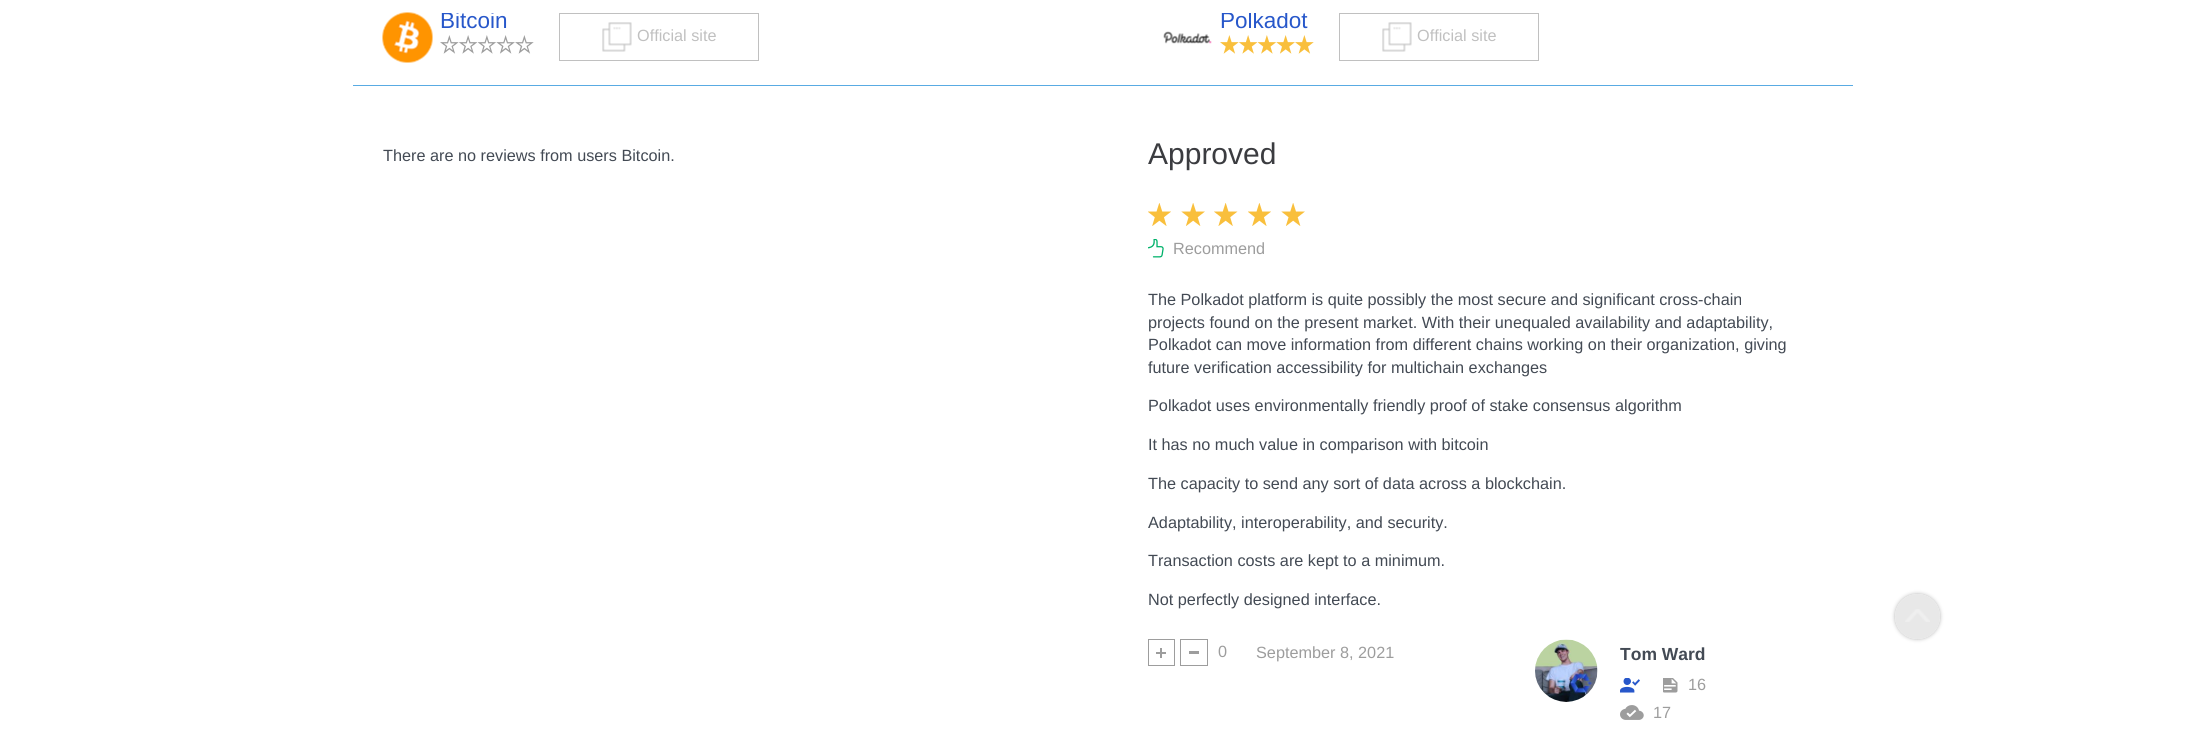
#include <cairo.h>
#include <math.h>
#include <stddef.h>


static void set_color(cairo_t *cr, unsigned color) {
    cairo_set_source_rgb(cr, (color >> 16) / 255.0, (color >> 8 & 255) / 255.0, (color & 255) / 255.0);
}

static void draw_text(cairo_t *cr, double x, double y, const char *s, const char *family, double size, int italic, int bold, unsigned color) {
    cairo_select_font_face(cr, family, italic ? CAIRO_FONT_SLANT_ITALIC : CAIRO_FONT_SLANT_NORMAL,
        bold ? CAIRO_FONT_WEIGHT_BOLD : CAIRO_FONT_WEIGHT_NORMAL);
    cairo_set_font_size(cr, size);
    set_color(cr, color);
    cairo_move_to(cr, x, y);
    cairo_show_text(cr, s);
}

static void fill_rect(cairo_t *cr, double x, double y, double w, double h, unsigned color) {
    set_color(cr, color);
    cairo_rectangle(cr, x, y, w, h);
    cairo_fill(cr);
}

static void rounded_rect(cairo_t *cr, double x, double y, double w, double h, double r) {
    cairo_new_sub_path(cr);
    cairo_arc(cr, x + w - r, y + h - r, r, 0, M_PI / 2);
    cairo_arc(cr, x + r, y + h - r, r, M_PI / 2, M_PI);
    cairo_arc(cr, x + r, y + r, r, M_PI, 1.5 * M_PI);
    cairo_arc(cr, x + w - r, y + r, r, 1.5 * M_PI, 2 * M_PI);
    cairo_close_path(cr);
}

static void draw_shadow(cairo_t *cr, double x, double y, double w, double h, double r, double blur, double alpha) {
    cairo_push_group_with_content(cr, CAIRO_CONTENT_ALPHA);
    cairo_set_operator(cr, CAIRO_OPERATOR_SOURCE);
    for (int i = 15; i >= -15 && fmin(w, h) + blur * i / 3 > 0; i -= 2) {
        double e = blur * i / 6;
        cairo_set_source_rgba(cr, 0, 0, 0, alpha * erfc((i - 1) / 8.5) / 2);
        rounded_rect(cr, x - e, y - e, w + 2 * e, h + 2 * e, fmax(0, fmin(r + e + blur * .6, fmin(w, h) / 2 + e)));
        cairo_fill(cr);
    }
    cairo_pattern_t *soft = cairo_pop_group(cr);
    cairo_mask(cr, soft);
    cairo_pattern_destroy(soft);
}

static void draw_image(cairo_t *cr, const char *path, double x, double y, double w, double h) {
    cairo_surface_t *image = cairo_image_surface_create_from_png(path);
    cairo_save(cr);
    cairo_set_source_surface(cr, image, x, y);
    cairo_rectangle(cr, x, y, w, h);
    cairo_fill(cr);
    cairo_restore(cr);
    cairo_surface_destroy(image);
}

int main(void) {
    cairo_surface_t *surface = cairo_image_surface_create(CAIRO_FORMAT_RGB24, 2204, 736);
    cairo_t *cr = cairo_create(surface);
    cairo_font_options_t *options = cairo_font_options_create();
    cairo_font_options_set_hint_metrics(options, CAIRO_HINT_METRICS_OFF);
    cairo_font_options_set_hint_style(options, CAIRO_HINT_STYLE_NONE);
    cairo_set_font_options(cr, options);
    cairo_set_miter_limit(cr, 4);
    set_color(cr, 0xFFFFFF);
    cairo_paint(cr);
    draw_image(cr, "assets/img1.png", 382, 12, 51, 51);
    cairo_save(cr);
    cairo_rectangle(cr, 440, 13, 94, 21);
    cairo_clip(cr);
    draw_text(cr, 440, 28, "Bitcoin", "Liberation Sans", 22.5, 0, 0, 0x2757CA);
    cairo_restore(cr);
    draw_image(cr, "assets/img2.png", 440, 35, 19, 19);
    draw_image(cr, "assets/img3.png", 459, 35, 19, 19);
    draw_image(cr, "assets/img4.png", 478, 35, 18, 19);
    draw_image(cr, "assets/img5.png", 496, 35, 19, 19);
    draw_image(cr, "assets/img2.png", 515, 35, 19, 19);
    cairo_rectangle(cr, 559.5, 13.5, 199, 47);
    set_color(cr, 0xC0C0C0);
    cairo_set_line_width(cr, 1);
    cairo_stroke(cr);
    draw_image(cr, "assets/img6.png", 602, 22, 30, 30);
    draw_text(cr, 637, 41, "Official site", "Liberation Sans", 16.25, 0, 0, 0xC0C0C0);
    cairo_save(cr);
    cairo_rectangle(cr, 1220, 13, 94, 21);
    cairo_clip(cr);
    draw_text(cr, 1220, 28, "Polkadot", "Liberation Sans", 22.5, 0, 0, 0x2757CA);
    cairo_restore(cr);
    draw_image(cr, "assets/img7.png", 1220, 35, 19, 19);
    draw_image(cr, "assets/img8.png", 1239, 35, 19, 19);
    draw_image(cr, "assets/img9.png", 1258, 35, 18, 19);
    draw_image(cr, "assets/img10.png", 1276, 35, 19, 19);
    draw_image(cr, "assets/img7.png", 1295, 35, 19, 19);
    draw_image(cr, "assets/img11.png", 1163, 31, 49, 13);
    cairo_rectangle(cr, 1339.5, 13.5, 199, 47);
    cairo_stroke(cr);
    draw_image(cr, "assets/img6.png", 1382, 22, 30, 30);
    draw_text(cr, 1417, 41, "Official site", "Liberation Sans", 16.25, 0, 0, 0xC0C0C0);
    fill_rect(cr, 353, 85, 1500, 1, 0x59ABE3);
    draw_text(cr, 383, 161, "There are no reviews from users Bitcoin.", "Liberation Sans", 16.25, 0, 0, 0x434A54);
    draw_text(cr, 1148, 164, "Approved", "Liberation Sans", 30, 0, 0, 0x3B3C40);
    draw_image(cr, "assets/img12.png", 1148, 203, 23, 23);
    draw_image(cr, "assets/img13.png", 1181, 203, 24, 23);
    draw_image(cr, "assets/img14.png", 1214, 203, 24, 23);
    draw_image(cr, "assets/img12.png", 1248, 203, 23, 23);
    draw_image(cr, "assets/img13.png", 1281, 203, 24, 23);
    draw_image(cr, "assets/img15.png", 1148, 239, 16, 19);
    draw_text(cr, 1173, 254, "Recommend", "Liberation Sans", 16.25, 0, 0, 0x9D9D9D);
    draw_text(cr, 1148, 305, "The Polkadot platform is quite possibly the most secure and significant cross-chain", "Liberation Sans", 16.25, 0, 0, 0x434A54);
    draw_text(cr, 1148, 328, "projects found on the present market. With their unequaled availability and adaptability,", "Liberation Sans", 16.25, 0, 0, 0x434A54);
    draw_text(cr, 1148, 350, "Polkadot can move information from different chains working on their organization, giving", "Liberation Sans", 16.25, 0, 0, 0x434A54);
    draw_text(cr, 1148, 373, "future verification accessibility for multichain exchanges", "Liberation Sans", 16.25, 0, 0, 0x434A54);
    draw_text(cr, 1148, 411, "Polkadot uses environmentally friendly proof of stake consensus algorithm", "Liberation Sans", 16.25, 0, 0, 0x434A54);
    draw_text(cr, 1148, 450, "It has no much value in comparison with bitcoin", "Liberation Sans", 16.25, 0, 0, 0x434A54);
    draw_text(cr, 1148, 489, "The capacity to send any sort of data across a blockchain.", "Liberation Sans", 16.25, 0, 0, 0x434A54);
    draw_text(cr, 1148, 528, "Adaptability, interoperability, and security.", "Liberation Sans", 16.25, 0, 0, 0x434A54);
    draw_text(cr, 1148, 566, "Transaction costs are kept to a minimum.", "Liberation Sans", 16.25, 0, 0, 0x434A54);
    draw_text(cr, 1148, 605, "Not perfectly designed interface.", "Liberation Sans", 16.25, 0, 0, 0x434A54);
    cairo_rectangle(cr, 1148.5, 639.5, 26, 26);
    set_color(cr, 0x9D9D9D);
    cairo_stroke(cr);
    fill_rect(cr, 1156, 652, 10, 2, 0x9D9D9D);
    fill_rect(cr, 1160, 648, 2, 10, 0x9D9D9D);
    cairo_rectangle(cr, 1180.5, 639.5, 27, 26);
    cairo_stroke(cr);
    fill_rect(cr, 1189, 651, 10, 3, 0x9D9D9D);
    draw_text(cr, 1218, 657, "0", "Liberation Sans", 16.25, 0, 0, 0x9D9D9D);
    draw_text(cr, 1256, 658, "September 8, 2021", "Liberation Sans", 16.25, 0, 0, 0x9D9D9D);
    draw_image(cr, "assets/img16.png", 1535, 639, 63, 63);
    draw_text(cr, 1620, 660, "Tom Ward", "Liberation Sans", 17.5, 0, 1, 0x434A54);
    draw_image(cr, "assets/img17.png", 1620, 678, 20, 15);
    draw_image(cr, "assets/img18.png", 1663, 678, 15, 15);
    draw_text(cr, 1688, 690, "16", "Liberation Sans", 16.25, 0, 0, 0x9D9D9D);
    draw_image(cr, "assets/img19.png", 1620, 705, 24, 15);
    draw_text(cr, 1653, 718, "17", "Liberation Sans", 16.25, 0, 0, 0x9D9D9D);
    cairo_save(cr);
    cairo_set_fill_rule(cr, CAIRO_FILL_RULE_EVEN_ODD);
    cairo_new_path(cr);
    cairo_move_to(cr, 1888, 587);
    cairo_line_to(cr, 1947, 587);
    cairo_line_to(cr, 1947, 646);
    cairo_line_to(cr, 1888, 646);
    cairo_close_path(cr);
    cairo_move_to(cr, 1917.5, 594);
    cairo_curve_to(cr, 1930, 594, 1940, 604, 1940, 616.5);
    cairo_curve_to(cr, 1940, 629, 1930, 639, 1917.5, 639);
    cairo_curve_to(cr, 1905, 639, 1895, 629, 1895, 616.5);
    cairo_curve_to(cr, 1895, 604, 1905, 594, 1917.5, 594);
    cairo_close_path(cr);
    cairo_clip(cr);
    set_color(cr, 0xB3B3B3);
    draw_shadow(cr, 1895, 594, 45, 45, 22.5, 2, 1);
    cairo_restore(cr);
    cairo_set_source_rgba(cr, 0.702, 0.702, 0.702, 0.3);
    cairo_arc(cr, 1917.5, 616.5, 22.5, 0, 2 * M_PI);
    cairo_fill(cr);
    draw_image(cr, "assets/img20.png", 1905, 609, 25, 13);
    cairo_surface_write_to_png(surface, "output.png");
    cairo_font_options_destroy(options);
    cairo_destroy(cr);
    cairo_surface_destroy(surface);
    return 0;
}
